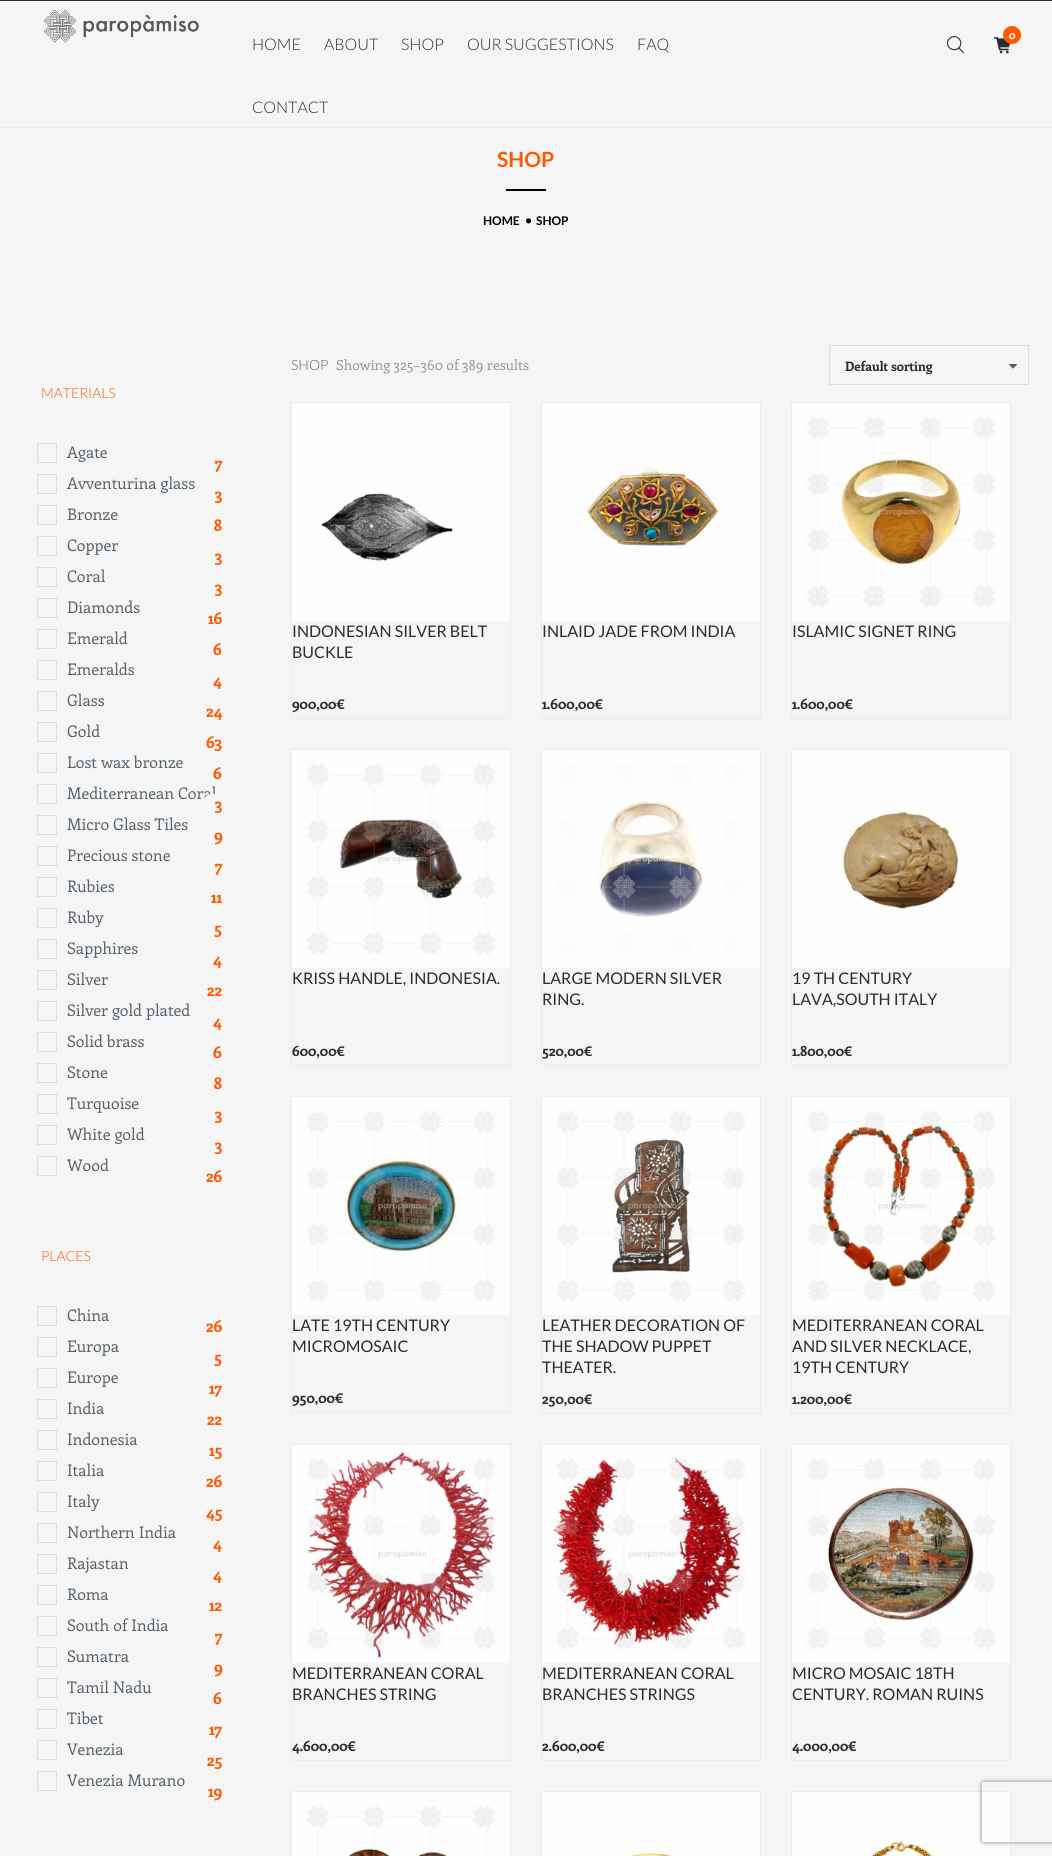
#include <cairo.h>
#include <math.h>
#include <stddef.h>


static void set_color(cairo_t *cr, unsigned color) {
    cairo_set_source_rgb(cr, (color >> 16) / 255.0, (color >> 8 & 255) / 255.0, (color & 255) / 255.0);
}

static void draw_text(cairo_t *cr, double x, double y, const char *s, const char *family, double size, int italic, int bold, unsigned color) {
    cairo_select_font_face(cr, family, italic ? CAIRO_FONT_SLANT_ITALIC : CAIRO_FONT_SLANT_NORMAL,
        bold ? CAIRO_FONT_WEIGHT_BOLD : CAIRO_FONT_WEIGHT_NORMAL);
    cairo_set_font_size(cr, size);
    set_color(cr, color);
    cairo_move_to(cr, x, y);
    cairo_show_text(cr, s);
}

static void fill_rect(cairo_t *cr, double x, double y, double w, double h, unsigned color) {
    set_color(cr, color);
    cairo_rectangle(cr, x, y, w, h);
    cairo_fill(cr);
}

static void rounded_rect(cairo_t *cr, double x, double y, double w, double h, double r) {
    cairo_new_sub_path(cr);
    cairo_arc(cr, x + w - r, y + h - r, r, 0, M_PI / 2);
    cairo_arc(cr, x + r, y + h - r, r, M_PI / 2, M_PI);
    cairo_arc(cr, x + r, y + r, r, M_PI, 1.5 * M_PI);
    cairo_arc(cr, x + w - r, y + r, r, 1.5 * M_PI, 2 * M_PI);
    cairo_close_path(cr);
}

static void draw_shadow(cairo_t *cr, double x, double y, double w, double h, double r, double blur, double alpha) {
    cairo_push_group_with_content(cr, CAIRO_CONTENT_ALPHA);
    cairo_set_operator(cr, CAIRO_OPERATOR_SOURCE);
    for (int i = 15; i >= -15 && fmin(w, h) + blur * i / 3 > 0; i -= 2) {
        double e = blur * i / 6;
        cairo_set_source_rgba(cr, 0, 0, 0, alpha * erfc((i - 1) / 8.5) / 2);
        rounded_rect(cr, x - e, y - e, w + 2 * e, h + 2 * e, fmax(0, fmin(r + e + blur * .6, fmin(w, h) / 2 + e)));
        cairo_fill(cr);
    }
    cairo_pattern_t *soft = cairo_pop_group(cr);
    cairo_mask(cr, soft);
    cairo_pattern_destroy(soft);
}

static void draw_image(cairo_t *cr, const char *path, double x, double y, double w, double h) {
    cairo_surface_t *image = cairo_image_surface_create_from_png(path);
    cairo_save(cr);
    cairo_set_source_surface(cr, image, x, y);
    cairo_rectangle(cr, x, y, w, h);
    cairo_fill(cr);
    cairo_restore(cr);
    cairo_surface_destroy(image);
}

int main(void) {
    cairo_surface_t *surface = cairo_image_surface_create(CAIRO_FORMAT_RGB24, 1052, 1856);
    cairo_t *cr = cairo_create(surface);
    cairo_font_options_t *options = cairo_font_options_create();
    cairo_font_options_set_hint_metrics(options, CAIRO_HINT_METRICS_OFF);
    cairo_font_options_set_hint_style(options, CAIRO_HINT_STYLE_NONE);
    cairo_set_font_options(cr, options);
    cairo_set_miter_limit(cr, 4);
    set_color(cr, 0xF5F5F5);
    cairo_paint(cr);
    fill_rect(cr, 0, 0, 1052, 1, 0x262E31);
    draw_image(cr, "assets/img1.png", 43, 9, 156, 34);
    draw_image(cr, "assets/img2.png", 947, 36, 17, 18);
    draw_image(cr, "assets/img3.png", 994, 37, 17, 17);
    set_color(cr, 0xFF5A00);
    cairo_arc(cr, 1012, 35, 9, 0, 2 * M_PI);
    cairo_fill(cr);
    draw_text(cr, 1009, 39, "0", "Enriqueta", 11, 0, 1, 0xFFFFFF);
    draw_text(cr, 252, 50, "HOME", "Lato Light", 16, 0, 0, 0x262E31);
    draw_text(cr, 324, 50, "ABOUT", "Lato Light", 16, 0, 0, 0x262E31);
    draw_text(cr, 401, 50, "SHOP", "Lato Light", 16, 0, 0, 0x262E31);
    draw_text(cr, 467, 50, "OUR SUGGESTIONS", "Lato Light", 16, 0, 0, 0x262E31);
    draw_text(cr, 637, 50, "FAQ", "Lato Light", 16, 0, 0, 0x262E31);
    draw_text(cr, 252, 113, "CONTACT", "Lato Light", 16, 0, 0, 0x262E31);
    fill_rect(cr, 0, 127, 1052, 1, 0xE8EBF1);
    draw_text(cr, 497, 167, "SHOP", "Lato", 21, 0, 1, 0xFF5A00);
    fill_rect(cr, 506, 189, 40, 2, 0x000000);
    draw_text(cr, 483, 225, "HOME", "Lato", 12, 0, 1, 0x000000);
    draw_image(cr, "assets/img4.png", 526, 218, 6, 6);
    draw_text(cr, 536, 225, "SHOP", "Lato", 12, 0, 1, 0x000000);
    draw_text(cr, 41, 398, "MATERIALS", "Lato Light", 14, 0, 0, 0xFF5A00);
    cairo_rectangle(cr, 37.5, 443.5, 19, 19);
    set_color(cr, 0xD8DDE6);
    cairo_set_line_width(cr, 1);
    cairo_stroke(cr);
    draw_text(cr, 67, 458, "Agate", "Enriqueta", 16, 0, 0, 0x55616A);
    draw_text(cr, 215, 469, "7", "Enriqueta", 16, 0, 1, 0xFF5A00);
    cairo_rectangle(cr, 37.5, 474.5, 19, 19);
    set_color(cr, 0xD8DDE6);
    cairo_stroke(cr);
    draw_text(cr, 67, 489, "Avventurina glass", "Enriqueta", 16, 0, 0, 0x55616A);
    draw_text(cr, 215, 500, "3", "Enriqueta", 16, 0, 1, 0xFF5A00);
    cairo_rectangle(cr, 37.5, 505.5, 19, 19);
    set_color(cr, 0xD8DDE6);
    cairo_stroke(cr);
    draw_text(cr, 67, 520, "Bronze", "Enriqueta", 16, 0, 0, 0x55616A);
    draw_text(cr, 214, 531, "8", "Enriqueta", 16, 0, 1, 0xFF5A00);
    cairo_rectangle(cr, 37.5, 536.5, 19, 19);
    set_color(cr, 0xD8DDE6);
    cairo_stroke(cr);
    draw_text(cr, 67, 551, "Copper", "Enriqueta", 16, 0, 0, 0x55616A);
    draw_text(cr, 215, 562, "3", "Enriqueta", 16, 0, 1, 0xFF5A00);
    cairo_rectangle(cr, 37.5, 567.5, 19, 19);
    set_color(cr, 0xD8DDE6);
    cairo_stroke(cr);
    draw_text(cr, 67, 582, "Coral", "Enriqueta", 16, 0, 0, 0x55616A);
    draw_text(cr, 215, 593, "3", "Enriqueta", 16, 0, 1, 0xFF5A00);
    cairo_rectangle(cr, 37.5, 598.5, 19, 19);
    set_color(cr, 0xD8DDE6);
    cairo_stroke(cr);
    draw_text(cr, 67, 613, "Diamonds", "Enriqueta", 16, 0, 0, 0x55616A);
    draw_text(cr, 208, 624, "16", "Enriqueta", 16, 0, 1, 0xFF5A00);
    cairo_rectangle(cr, 37.5, 629.5, 19, 19);
    set_color(cr, 0xD8DDE6);
    cairo_stroke(cr);
    draw_text(cr, 67, 644, "Emerald", "Enriqueta", 16, 0, 0, 0x55616A);
    draw_text(cr, 213, 655, "6", "Enriqueta", 16, 0, 1, 0xFF5A00);
    cairo_rectangle(cr, 37.5, 660.5, 19, 19);
    set_color(cr, 0xD8DDE6);
    cairo_stroke(cr);
    draw_text(cr, 67, 675, "Emeralds", "Enriqueta", 16, 0, 0, 0x55616A);
    draw_text(cr, 213, 686, "4", "Enriqueta", 16, 0, 1, 0xFF5A00);
    cairo_rectangle(cr, 37.5, 691.5, 19, 19);
    set_color(cr, 0xD8DDE6);
    cairo_stroke(cr);
    draw_text(cr, 67, 706, "Glass", "Enriqueta", 16, 0, 0, 0x55616A);
    draw_text(cr, 206, 717, "24", "Enriqueta", 16, 0, 1, 0xFF5A00);
    cairo_rectangle(cr, 37.5, 722.5, 19, 19);
    set_color(cr, 0xD8DDE6);
    cairo_stroke(cr);
    draw_text(cr, 67, 737, "Gold", "Enriqueta", 16, 0, 0, 0x55616A);
    draw_text(cr, 206, 748, "63", "Enriqueta", 16, 0, 1, 0xFF5A00);
    cairo_rectangle(cr, 37.5, 753.5, 19, 19);
    set_color(cr, 0xD8DDE6);
    cairo_stroke(cr);
    draw_text(cr, 67, 768, "Lost wax bronze", "Enriqueta", 16, 0, 0, 0x55616A);
    draw_text(cr, 213, 779, "6", "Enriqueta", 16, 0, 1, 0xFF5A00);
    cairo_rectangle(cr, 37.5, 784.5, 19, 19);
    set_color(cr, 0xD8DDE6);
    cairo_stroke(cr);
    draw_text(cr, 67, 799, "Mediterranean Coral", "Enriqueta", 16, 0, 0, 0x55616A);
    set_color(cr, 0xF5F5F5);
    rounded_rect(cr, 202, 794, 33, 20, 10);
    cairo_fill(cr);
    draw_text(cr, 215, 810, "3", "Enriqueta", 16, 0, 1, 0xFF5A00);
    cairo_rectangle(cr, 37.5, 815.5, 19, 19);
    set_color(cr, 0xD8DDE6);
    cairo_stroke(cr);
    draw_text(cr, 67, 830, "Micro Glass Tiles", "Enriqueta", 16, 0, 0, 0x55616A);
    draw_text(cr, 214, 841, "9", "Enriqueta", 16, 0, 1, 0xFF5A00);
    cairo_rectangle(cr, 37.5, 846.5, 19, 19);
    set_color(cr, 0xD8DDE6);
    cairo_stroke(cr);
    draw_text(cr, 67, 861, "Precious stone", "Enriqueta", 16, 0, 0, 0x55616A);
    draw_text(cr, 215, 872, "7", "Enriqueta", 16, 0, 1, 0xFF5A00);
    cairo_rectangle(cr, 37.5, 877.5, 19, 19);
    set_color(cr, 0xD8DDE6);
    cairo_stroke(cr);
    draw_text(cr, 67, 892, "Rubies", "Enriqueta", 16, 0, 0, 0x55616A);
    draw_text(cr, 211, 903, "11", "Enriqueta", 16, 0, 1, 0xFF5A00);
    fill_rect(cr, 222, 901, 1, 6, 0xF5F5F5);
    cairo_rectangle(cr, 37.5, 908.5, 19, 19);
    set_color(cr, 0xD8DDE6);
    cairo_stroke(cr);
    draw_text(cr, 67, 923, "Ruby", "Enriqueta", 16, 0, 0, 0x55616A);
    draw_text(cr, 214, 934, "5", "Enriqueta", 16, 0, 1, 0xFF5A00);
    cairo_rectangle(cr, 37.5, 939.5, 19, 19);
    set_color(cr, 0xD8DDE6);
    cairo_stroke(cr);
    draw_text(cr, 67, 954, "Sapphires", "Enriqueta", 16, 0, 0, 0x55616A);
    draw_text(cr, 213, 965, "4", "Enriqueta", 16, 0, 1, 0xFF5A00);
    cairo_rectangle(cr, 37.5, 970.5, 19, 19);
    set_color(cr, 0xD8DDE6);
    cairo_stroke(cr);
    draw_text(cr, 67, 985, "Silver", "Enriqueta", 16, 0, 0, 0x55616A);
    draw_text(cr, 207, 996, "22", "Enriqueta", 16, 0, 1, 0xFF5A00);
    cairo_rectangle(cr, 37.5, 1001.5, 19, 19);
    set_color(cr, 0xD8DDE6);
    cairo_stroke(cr);
    draw_text(cr, 67, 1016, "Silver gold plated", "Enriqueta", 16, 0, 0, 0x55616A);
    draw_text(cr, 213, 1027, "4", "Enriqueta", 16, 0, 1, 0xFF5A00);
    cairo_rectangle(cr, 37.5, 1032.5, 19, 19);
    set_color(cr, 0xD8DDE6);
    cairo_stroke(cr);
    draw_text(cr, 67, 1047, "Solid brass", "Enriqueta", 16, 0, 0, 0x55616A);
    draw_text(cr, 213, 1058, "6", "Enriqueta", 16, 0, 1, 0xFF5A00);
    cairo_rectangle(cr, 37.5, 1063.5, 19, 19);
    set_color(cr, 0xD8DDE6);
    cairo_stroke(cr);
    draw_text(cr, 67, 1078, "Stone", "Enriqueta", 16, 0, 0, 0x55616A);
    draw_text(cr, 214, 1089, "8", "Enriqueta", 16, 0, 1, 0xFF5A00);
    cairo_rectangle(cr, 37.5, 1094.5, 19, 19);
    set_color(cr, 0xD8DDE6);
    cairo_stroke(cr);
    draw_text(cr, 67, 1109, "Turquoise", "Enriqueta", 16, 0, 0, 0x55616A);
    draw_text(cr, 215, 1120, "3", "Enriqueta", 16, 0, 1, 0xFF5A00);
    cairo_rectangle(cr, 37.5, 1125.5, 19, 19);
    set_color(cr, 0xD8DDE6);
    cairo_stroke(cr);
    draw_text(cr, 67, 1140, "White gold", "Enriqueta", 16, 0, 0, 0x55616A);
    draw_text(cr, 215, 1151, "3", "Enriqueta", 16, 0, 1, 0xFF5A00);
    cairo_rectangle(cr, 37.5, 1156.5, 19, 19);
    set_color(cr, 0xD8DDE6);
    cairo_stroke(cr);
    draw_text(cr, 67, 1171, "Wood", "Enriqueta", 16, 0, 0, 0x55616A);
    draw_text(cr, 206, 1182, "26", "Enriqueta", 16, 0, 1, 0xFF5A00);
    draw_text(cr, 41, 1261, "PLACES", "Lato Light", 14, 0, 0, 0xFF5A00);
    cairo_rectangle(cr, 37.5, 1306.5, 19, 19);
    set_color(cr, 0xD8DDE6);
    cairo_stroke(cr);
    draw_text(cr, 67, 1321, "China", "Enriqueta", 16, 0, 0, 0x55616A);
    draw_text(cr, 206, 1332, "26", "Enriqueta", 16, 0, 1, 0xFF5A00);
    cairo_rectangle(cr, 37.5, 1337.5, 19, 19);
    set_color(cr, 0xD8DDE6);
    cairo_stroke(cr);
    draw_text(cr, 67, 1352, "Europa", "Enriqueta", 16, 0, 0, 0x55616A);
    draw_text(cr, 214, 1363, "5", "Enriqueta", 16, 0, 1, 0xFF5A00);
    cairo_rectangle(cr, 37.5, 1368.5, 19, 19);
    set_color(cr, 0xD8DDE6);
    cairo_stroke(cr);
    draw_text(cr, 67, 1383, "Europe", "Enriqueta", 16, 0, 0, 0x55616A);
    draw_text(cr, 209, 1394, "17", "Enriqueta", 16, 0, 1, 0xFF5A00);
    cairo_rectangle(cr, 37.5, 1399.5, 19, 19);
    set_color(cr, 0xD8DDE6);
    cairo_stroke(cr);
    draw_text(cr, 67, 1414, "India", "Enriqueta", 16, 0, 0, 0x55616A);
    draw_text(cr, 207, 1425, "22", "Enriqueta", 16, 0, 1, 0xFF5A00);
    cairo_rectangle(cr, 37.5, 1430.5, 19, 19);
    set_color(cr, 0xD8DDE6);
    cairo_stroke(cr);
    draw_text(cr, 67, 1445, "Indonesia", "Enriqueta", 16, 0, 0, 0x55616A);
    draw_text(cr, 209, 1456, "15", "Enriqueta", 16, 0, 1, 0xFF5A00);
    cairo_rectangle(cr, 37.5, 1461.5, 19, 19);
    set_color(cr, 0xD8DDE6);
    cairo_stroke(cr);
    draw_text(cr, 67, 1476, "Italia", "Enriqueta", 16, 0, 0, 0x55616A);
    draw_text(cr, 206, 1487, "26", "Enriqueta", 16, 0, 1, 0xFF5A00);
    cairo_rectangle(cr, 37.5, 1492.5, 19, 19);
    set_color(cr, 0xD8DDE6);
    cairo_stroke(cr);
    draw_text(cr, 67, 1507, "Italy", "Enriqueta", 16, 0, 0, 0x55616A);
    draw_text(cr, 206, 1518, "45", "Enriqueta", 16, 0, 1, 0xFF5A00);
    cairo_rectangle(cr, 37.5, 1523.5, 19, 19);
    set_color(cr, 0xD8DDE6);
    cairo_stroke(cr);
    draw_text(cr, 67, 1538, "Northern India", "Enriqueta", 16, 0, 0, 0x55616A);
    draw_text(cr, 213, 1549, "4", "Enriqueta", 16, 0, 1, 0xFF5A00);
    cairo_rectangle(cr, 37.5, 1554.5, 19, 19);
    set_color(cr, 0xD8DDE6);
    cairo_stroke(cr);
    draw_text(cr, 67, 1569, "Rajastan", "Enriqueta", 16, 0, 0, 0x55616A);
    draw_text(cr, 213, 1580, "4", "Enriqueta", 16, 0, 1, 0xFF5A00);
    cairo_rectangle(cr, 37.5, 1585.5, 19, 19);
    set_color(cr, 0xD8DDE6);
    cairo_stroke(cr);
    draw_text(cr, 67, 1600, "Roma", "Enriqueta", 16, 0, 0, 0x55616A);
    draw_text(cr, 209, 1611, "12", "Enriqueta", 16, 0, 1, 0xFF5A00);
    cairo_rectangle(cr, 37.5, 1616.5, 19, 19);
    set_color(cr, 0xD8DDE6);
    cairo_stroke(cr);
    draw_text(cr, 67, 1631, "South of India", "Enriqueta", 16, 0, 0, 0x55616A);
    draw_text(cr, 215, 1642, "7", "Enriqueta", 16, 0, 1, 0xFF5A00);
    cairo_rectangle(cr, 37.5, 1647.5, 19, 19);
    set_color(cr, 0xD8DDE6);
    cairo_stroke(cr);
    draw_text(cr, 67, 1662, "Sumatra", "Enriqueta", 16, 0, 0, 0x55616A);
    draw_text(cr, 214, 1673, "9", "Enriqueta", 16, 0, 1, 0xFF5A00);
    cairo_rectangle(cr, 37.5, 1678.5, 19, 19);
    set_color(cr, 0xD8DDE6);
    cairo_stroke(cr);
    draw_text(cr, 67, 1693, "Tamil Nadu", "Enriqueta", 16, 0, 0, 0x55616A);
    draw_text(cr, 213, 1704, "6", "Enriqueta", 16, 0, 1, 0xFF5A00);
    cairo_rectangle(cr, 37.5, 1709.5, 19, 19);
    set_color(cr, 0xD8DDE6);
    cairo_stroke(cr);
    draw_text(cr, 67, 1724, "Tibet", "Enriqueta", 16, 0, 0, 0x55616A);
    draw_text(cr, 209, 1735, "17", "Enriqueta", 16, 0, 1, 0xFF5A00);
    cairo_rectangle(cr, 37.5, 1740.5, 19, 19);
    set_color(cr, 0xD8DDE6);
    cairo_stroke(cr);
    draw_text(cr, 67, 1755, "Venezia", "Enriqueta", 16, 0, 0, 0x55616A);
    draw_text(cr, 207, 1766, "25", "Enriqueta", 16, 0, 1, 0xFF5A00);
    cairo_rectangle(cr, 37.5, 1771.5, 19, 19);
    set_color(cr, 0xD8DDE6);
    cairo_stroke(cr);
    draw_text(cr, 67, 1786, "Venezia Murano", "Enriqueta", 16, 0, 0, 0x55616A);
    draw_text(cr, 208, 1797, "19", "Enriqueta", 16, 0, 1, 0xFF5A00);
    draw_text(cr, 291, 370, "SHOP", "Lato Light", 14, 0, 0, 0x55616A);
    draw_text(cr, 336, 370, "Showing 325–360 of 389 results", "Enriqueta", 14, 0, 0, 0x8A97A2);
    cairo_rectangle(cr, 829.5, 345.5, 199, 39);
    set_color(cr, 0xD8DDE6);
    cairo_stroke(cr);
    draw_text(cr, 845, 371, "Default sorting", "Enriqueta", 13, 0, 1, 0x262E31);
    draw_image(cr, "assets/img5.png", 1009, 364, 8, 5);
    cairo_rectangle(cr, 291.5, 402.5, 219, 316);
    set_color(cr, 0xECECEC);
    cairo_stroke(cr);
    draw_image(cr, "assets/img6.png", 292, 403, 218, 218);
    draw_text(cr, 292, 637, "INDONESIAN SILVER BELT", "Lato", 16, 0, 0, 0x262E31);
    draw_text(cr, 292, 658, "BUCKLE", "Lato", 16, 0, 0, 0x262E31);
    draw_text(cr, 292, 709, "900,00€", "Enriqueta", 14, 0, 1, 0x262E31);
    cairo_rectangle(cr, 541.5, 402.5, 219, 316);
    set_color(cr, 0xECECEC);
    cairo_stroke(cr);
    draw_image(cr, "assets/img7.png", 542, 403, 218, 218);
    draw_text(cr, 542, 637, "INLAID JADE FROM INDIA", "Lato", 16, 0, 0, 0x262E31);
    draw_text(cr, 542, 709, "1.600,00€", "Enriqueta", 14, 0, 1, 0x262E31);
    cairo_rectangle(cr, 791.5, 402.5, 219, 316);
    set_color(cr, 0xECECEC);
    cairo_stroke(cr);
    draw_image(cr, "assets/img8.png", 792, 403, 218, 218);
    draw_text(cr, 792, 637, "ISLAMIC SIGNET RING", "Lato", 16, 0, 0, 0x262E31);
    draw_text(cr, 792, 709, "1.600,00€", "Enriqueta", 14, 0, 1, 0x262E31);
    cairo_rectangle(cr, 291.5, 749.5, 219, 316);
    set_color(cr, 0xECECEC);
    cairo_stroke(cr);
    draw_image(cr, "assets/img9.png", 292, 750, 218, 218);
    draw_text(cr, 292, 984, "KRISS HANDLE, INDONESIA.", "Lato", 16, 0, 0, 0x262E31);
    draw_text(cr, 292, 1056, "600,00€", "Enriqueta", 14, 0, 1, 0x262E31);
    cairo_rectangle(cr, 541.5, 749.5, 219, 316);
    set_color(cr, 0xECECEC);
    cairo_stroke(cr);
    draw_image(cr, "assets/img10.png", 542, 750, 218, 218);
    draw_text(cr, 542, 984, "LARGE MODERN SILVER", "Lato", 16, 0, 0, 0x262E31);
    draw_text(cr, 542, 1005, "RING.", "Lato", 16, 0, 0, 0x262E31);
    draw_text(cr, 542, 1056, "520,00€", "Enriqueta", 14, 0, 1, 0x262E31);
    cairo_rectangle(cr, 791.5, 749.5, 219, 316);
    set_color(cr, 0xECECEC);
    cairo_stroke(cr);
    draw_image(cr, "assets/img11.png", 792, 750, 218, 218);
    draw_text(cr, 792, 984, "19 TH CENTURY", "Lato", 16, 0, 0, 0x262E31);
    draw_text(cr, 792, 1005, "LAVA,SOUTH ITALY", "Lato", 16, 0, 0, 0x262E31);
    draw_text(cr, 792, 1056, "1.800,00€", "Enriqueta", 14, 0, 1, 0x262E31);
    cairo_rectangle(cr, 291.5, 1096.5, 219, 316);
    set_color(cr, 0xECECEC);
    cairo_stroke(cr);
    draw_image(cr, "assets/img12.png", 292, 1097, 218, 218);
    draw_text(cr, 292, 1331, "LATE 19TH CENTURY", "Lato", 16, 0, 0, 0x262E31);
    draw_text(cr, 292, 1352, "MICROMOSAIC", "Lato", 16, 0, 0, 0x262E31);
    draw_text(cr, 292, 1403, "950,00€", "Enriqueta", 14, 0, 1, 0x262E31);
    cairo_rectangle(cr, 541.5, 1096.5, 219, 317);
    set_color(cr, 0xECECEC);
    cairo_stroke(cr);
    draw_image(cr, "assets/img13.png", 542, 1097, 218, 218);
    draw_text(cr, 542, 1331, "LEATHER DECORATION OF", "Lato", 16, 0, 0, 0x262E31);
    draw_text(cr, 542, 1352, "THE SHADOW PUPPET", "Lato", 16, 0, 0, 0x262E31);
    draw_text(cr, 542, 1373, "THEATER.", "Lato", 16, 0, 0, 0x262E31);
    draw_text(cr, 542, 1404, "250,00€", "Enriqueta", 14, 0, 1, 0x262E31);
    cairo_rectangle(cr, 791.5, 1096.5, 219, 317);
    set_color(cr, 0xECECEC);
    cairo_stroke(cr);
    draw_image(cr, "assets/img14.png", 792, 1097, 218, 218);
    draw_text(cr, 792, 1331, "MEDITERRANEAN CORAL", "Lato", 16, 0, 0, 0x262E31);
    draw_text(cr, 792, 1352, "AND SILVER NECKLACE,", "Lato", 16, 0, 0, 0x262E31);
    draw_text(cr, 792, 1373, "19TH CENTURY", "Lato", 16, 0, 0, 0x262E31);
    draw_text(cr, 792, 1404, "1.200,00€", "Enriqueta", 14, 0, 1, 0x262E31);
    cairo_rectangle(cr, 291.5, 1444.5, 219, 316);
    set_color(cr, 0xECECEC);
    cairo_stroke(cr);
    draw_image(cr, "assets/img15.png", 292, 1445, 218, 218);
    draw_text(cr, 292, 1679, "MEDITERRANEAN CORAL", "Lato", 16, 0, 0, 0x262E31);
    draw_text(cr, 292, 1700, "BRANCHES STRING", "Lato", 16, 0, 0, 0x262E31);
    draw_text(cr, 292, 1751, "4.600,00€", "Enriqueta", 14, 0, 1, 0x262E31);
    cairo_rectangle(cr, 541.5, 1444.5, 219, 316);
    set_color(cr, 0xECECEC);
    cairo_stroke(cr);
    draw_image(cr, "assets/img16.png", 542, 1445, 218, 218);
    draw_text(cr, 542, 1679, "MEDITERRANEAN CORAL", "Lato", 16, 0, 0, 0x262E31);
    draw_text(cr, 542, 1700, "BRANCHES STRINGS", "Lato", 16, 0, 0, 0x262E31);
    draw_text(cr, 542, 1751, "2.600,00€", "Enriqueta", 14, 0, 1, 0x262E31);
    cairo_rectangle(cr, 791.5, 1444.5, 219, 316);
    set_color(cr, 0xECECEC);
    cairo_stroke(cr);
    draw_image(cr, "assets/img17.png", 792, 1445, 218, 218);
    draw_text(cr, 792, 1679, "MICRO MOSAIC 18TH", "Lato", 16, 0, 0, 0x262E31);
    draw_text(cr, 792, 1700, "CENTURY. ROMAN RUINS", "Lato", 16, 0, 0, 0x262E31);
    draw_text(cr, 792, 1751, "4.000,00€", "Enriqueta", 14, 0, 1, 0x262E31);
    cairo_rectangle(cr, 291.5, 1791.5, 219, 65);
    set_color(cr, 0xECECEC);
    cairo_stroke(cr);
    draw_image(cr, "assets/img18.png", 292, 1792, 218, 64);
    cairo_rectangle(cr, 541.5, 1791.5, 219, 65);
    cairo_stroke(cr);
    draw_image(cr, "assets/img19.png", 542, 1792, 218, 64);
    cairo_rectangle(cr, 791.5, 1791.5, 219, 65);
    cairo_stroke(cr);
    draw_image(cr, "assets/img20.png", 792, 1792, 218, 64);
    cairo_save(cr);
    cairo_set_fill_rule(cr, CAIRO_FILL_RULE_EVEN_ODD);
    cairo_new_path(cr);
    cairo_move_to(cr, 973, 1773);
    cairo_line_to(cr, 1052, 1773);
    cairo_line_to(cr, 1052, 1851);
    cairo_line_to(cr, 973, 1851);
    cairo_close_path(cr);
    cairo_move_to(cr, 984, 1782);
    cairo_line_to(cr, 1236, 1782);
    cairo_curve_to(cr, 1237, 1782, 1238, 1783, 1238, 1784);
    cairo_line_to(cr, 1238, 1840);
    cairo_curve_to(cr, 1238, 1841, 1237, 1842, 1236, 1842);
    cairo_line_to(cr, 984, 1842);
    cairo_curve_to(cr, 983, 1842, 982, 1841, 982, 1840);
    cairo_line_to(cr, 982, 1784);
    cairo_curve_to(cr, 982, 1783, 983, 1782, 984, 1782);
    cairo_close_path(cr);
    cairo_clip(cr);
    set_color(cr, 0x808080);
    draw_shadow(cr, 982, 1782, 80, 60, 2, 2.5, 1);
    cairo_restore(cr);
    cairo_surface_write_to_png(surface, "output.png");
    cairo_font_options_destroy(options);
    cairo_destroy(cr);
    cairo_surface_destroy(surface);
    return 0;
}
